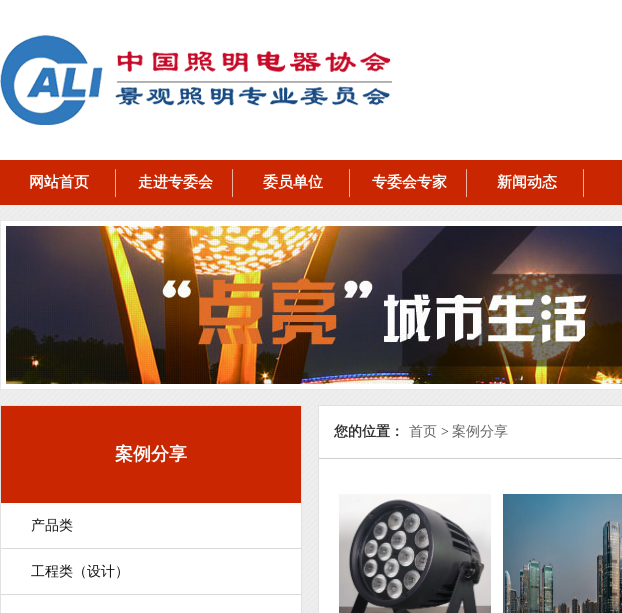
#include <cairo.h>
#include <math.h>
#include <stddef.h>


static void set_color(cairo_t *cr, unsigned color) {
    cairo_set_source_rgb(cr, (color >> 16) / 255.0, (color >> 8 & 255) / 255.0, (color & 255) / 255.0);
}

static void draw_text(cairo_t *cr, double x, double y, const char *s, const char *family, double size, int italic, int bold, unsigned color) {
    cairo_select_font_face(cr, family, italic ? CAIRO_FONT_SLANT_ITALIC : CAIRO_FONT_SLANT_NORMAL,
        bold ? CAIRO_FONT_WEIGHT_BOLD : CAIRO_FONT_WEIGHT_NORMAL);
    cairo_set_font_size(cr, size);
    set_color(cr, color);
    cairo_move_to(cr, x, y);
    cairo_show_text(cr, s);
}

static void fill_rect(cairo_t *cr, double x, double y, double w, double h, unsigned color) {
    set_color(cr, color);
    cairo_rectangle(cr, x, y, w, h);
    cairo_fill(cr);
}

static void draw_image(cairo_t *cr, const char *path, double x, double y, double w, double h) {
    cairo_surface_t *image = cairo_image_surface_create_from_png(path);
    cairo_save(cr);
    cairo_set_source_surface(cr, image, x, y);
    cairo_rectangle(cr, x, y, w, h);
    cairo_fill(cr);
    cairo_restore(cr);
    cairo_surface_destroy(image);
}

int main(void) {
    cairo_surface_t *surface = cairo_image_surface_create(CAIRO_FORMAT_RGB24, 622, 613);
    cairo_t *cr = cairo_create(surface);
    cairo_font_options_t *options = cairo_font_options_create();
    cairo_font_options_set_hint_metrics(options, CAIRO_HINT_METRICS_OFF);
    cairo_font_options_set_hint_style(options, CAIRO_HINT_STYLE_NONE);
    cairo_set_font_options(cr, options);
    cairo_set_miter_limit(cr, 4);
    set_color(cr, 0xFFFFFF);
    cairo_paint(cr);
    draw_image(cr, "assets/img1.png", 0, 205, 622, 408);
    draw_image(cr, "assets/img2.png", 0, 35, 392, 90);
    fill_rect(cr, 0, 160, 622, 45, 0xCA2601);
    draw_image(cr, "assets/img3.png", 115, 169, 1, 31);
    draw_text(cr, 29, 187, "网站首页", "WenQuanYi Zen Hei", 15, 0, 1, 0xFFFFFF);
    draw_image(cr, "assets/img3.png", 232, 169, 1, 31);
    draw_text(cr, 138, 187, "走进专委会", "WenQuanYi Zen Hei", 15, 0, 1, 0xFFFFFF);
    draw_image(cr, "assets/img3.png", 349, 169, 1, 31);
    draw_text(cr, 263, 187, "委员单位", "WenQuanYi Zen Hei", 15, 0, 1, 0xFFFFFF);
    draw_image(cr, "assets/img3.png", 466, 169, 1, 31);
    draw_text(cr, 372, 187, "专委会专家", "WenQuanYi Zen Hei", 15, 0, 1, 0xFFFFFF);
    draw_image(cr, "assets/img3.png", 583, 169, 1, 31);
    draw_text(cr, 497, 187, "新闻动态", "WenQuanYi Zen Hei", 15, 0, 1, 0xFFFFFF);
    cairo_rectangle(cr, 0.5, 220.5, 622, 169);
    cairo_fill_preserve(cr);
    set_color(cr, 0xE8E8E8);
    cairo_set_line_width(cr, 1);
    cairo_stroke(cr);
    draw_image(cr, "assets/img4.png", 6, 226, 616, 158);
    set_color(cr, 0xFFFFFF);
    cairo_rectangle(cr, 318.5, 405.5, 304, 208);
    cairo_fill_preserve(cr);
    set_color(cr, 0xE1E1E1);
    cairo_stroke(cr);
    fill_rect(cr, 319, 458, 303, 1, 0xCFCFCF);
    draw_text(cr, 334, 436, "您的位置：", "WenQuanYi Zen Hei", 14, 0, 1, 0x333333);
    draw_text(cr, 409, 436, "首页", "WenQuanYi Zen Hei Medium", 14, 0, 0, 0x666666);
    draw_text(cr, 441, 436, ">", "Liberation Serif", 14, 0, 0, 0x333333);
    draw_text(cr, 452, 436, "案例分享", "WenQuanYi Zen Hei Medium", 14, 0, 0, 0x666666);
    draw_image(cr, "assets/img5.png", 339, 494, 152, 119);
    draw_image(cr, "assets/img6.png", 503, 494, 119, 119);
    fill_rect(cr, 1, 503, 300, 110, 0xFFFFFF);
    cairo_rectangle(cr, 0.5, 405.5, 301, 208);
    set_color(cr, 0xE1E1E1);
    cairo_stroke(cr);
    fill_rect(cr, 1, 406, 300, 97, 0xCA2601);
    draw_text(cr, 115, 460, "案例分享", "WenQuanYi Zen Hei", 18, 0, 1, 0xFFFFFF);
    fill_rect(cr, 1, 548, 300, 1, 0xDADADA);
    draw_text(cr, 31, 530, "产品类", "WenQuanYi Zen Hei Medium", 14, 0, 0, 0x111111);
    fill_rect(cr, 1, 594, 300, 1, 0xDADADA);
    draw_text(cr, 31, 576, "工程类（设计）", "WenQuanYi Zen Hei Medium", 14, 0, 0, 0x111111);
    cairo_surface_write_to_png(surface, "output.png");
    cairo_font_options_destroy(options);
    cairo_destroy(cr);
    cairo_surface_destroy(surface);
    return 0;
}
